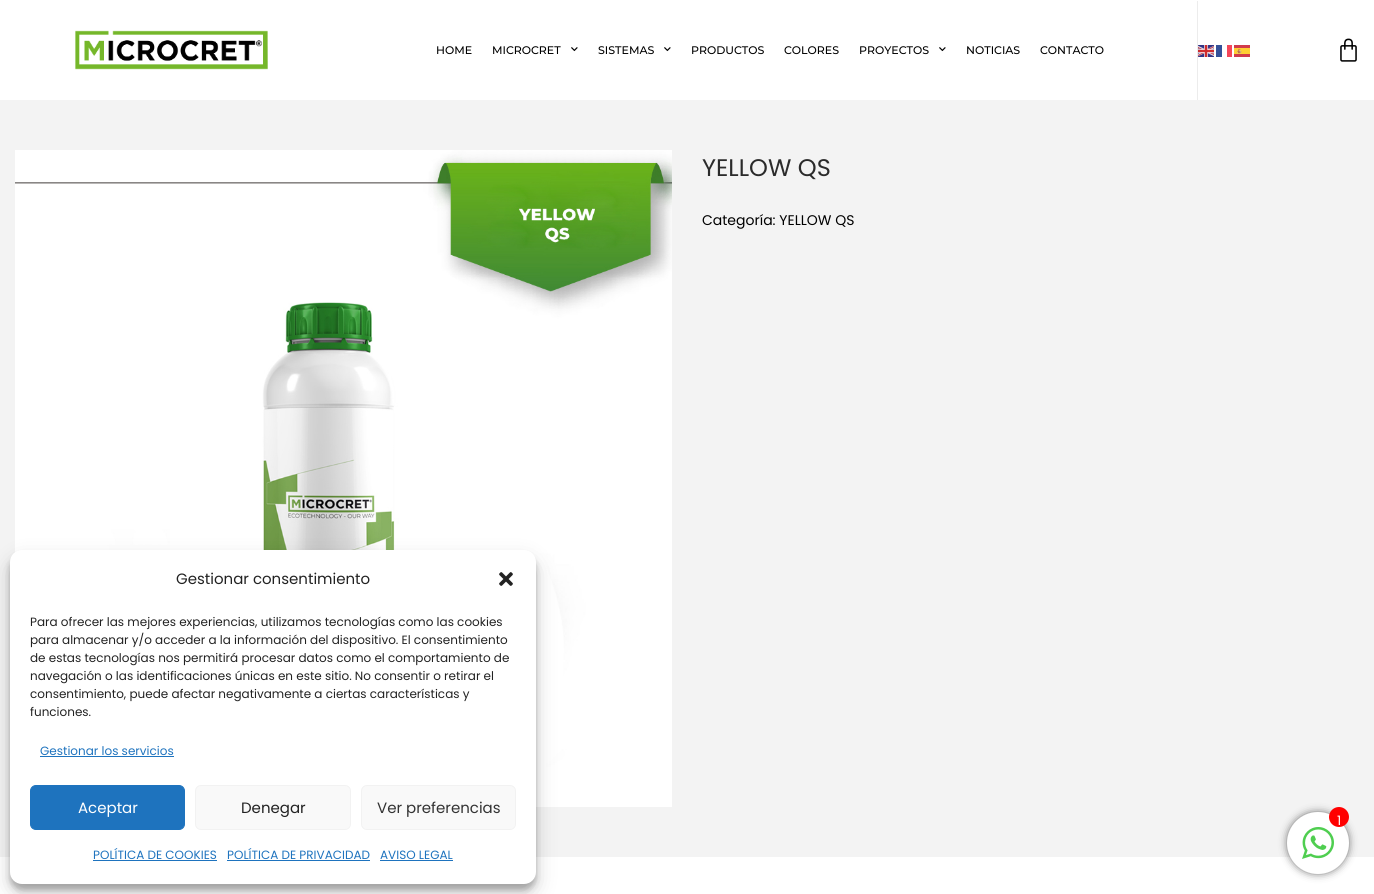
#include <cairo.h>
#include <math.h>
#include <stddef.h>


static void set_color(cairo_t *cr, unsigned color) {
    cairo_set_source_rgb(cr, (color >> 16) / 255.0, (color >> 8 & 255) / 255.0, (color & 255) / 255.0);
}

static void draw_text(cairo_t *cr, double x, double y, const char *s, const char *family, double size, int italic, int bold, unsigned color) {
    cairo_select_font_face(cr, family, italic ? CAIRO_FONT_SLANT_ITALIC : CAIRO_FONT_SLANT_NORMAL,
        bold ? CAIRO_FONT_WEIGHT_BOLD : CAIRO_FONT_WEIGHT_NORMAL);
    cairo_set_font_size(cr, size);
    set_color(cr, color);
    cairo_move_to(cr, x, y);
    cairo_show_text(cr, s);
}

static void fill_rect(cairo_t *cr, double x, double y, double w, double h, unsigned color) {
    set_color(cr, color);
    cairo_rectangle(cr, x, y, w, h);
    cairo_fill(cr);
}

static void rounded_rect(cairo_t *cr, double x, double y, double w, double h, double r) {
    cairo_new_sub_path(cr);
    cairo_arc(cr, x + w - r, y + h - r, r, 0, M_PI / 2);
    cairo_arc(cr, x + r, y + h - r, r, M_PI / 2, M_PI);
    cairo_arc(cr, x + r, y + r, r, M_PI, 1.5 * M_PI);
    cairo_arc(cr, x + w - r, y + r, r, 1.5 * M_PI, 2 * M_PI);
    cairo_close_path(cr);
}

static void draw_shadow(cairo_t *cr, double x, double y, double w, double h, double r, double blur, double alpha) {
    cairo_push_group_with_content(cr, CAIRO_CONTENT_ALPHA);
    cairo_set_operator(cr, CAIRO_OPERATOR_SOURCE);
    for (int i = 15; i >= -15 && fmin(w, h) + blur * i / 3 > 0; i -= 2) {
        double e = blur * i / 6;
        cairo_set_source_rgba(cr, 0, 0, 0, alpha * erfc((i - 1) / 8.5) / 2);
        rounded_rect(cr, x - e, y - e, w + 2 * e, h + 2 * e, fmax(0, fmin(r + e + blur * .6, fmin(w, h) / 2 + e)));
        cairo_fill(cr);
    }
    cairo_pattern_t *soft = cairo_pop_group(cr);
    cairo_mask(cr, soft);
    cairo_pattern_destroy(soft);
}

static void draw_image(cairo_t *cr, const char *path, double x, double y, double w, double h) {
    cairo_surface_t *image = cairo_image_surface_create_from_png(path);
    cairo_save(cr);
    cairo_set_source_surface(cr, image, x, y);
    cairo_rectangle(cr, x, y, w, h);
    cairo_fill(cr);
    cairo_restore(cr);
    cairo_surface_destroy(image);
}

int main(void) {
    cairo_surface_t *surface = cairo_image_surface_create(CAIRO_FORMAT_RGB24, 1374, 894);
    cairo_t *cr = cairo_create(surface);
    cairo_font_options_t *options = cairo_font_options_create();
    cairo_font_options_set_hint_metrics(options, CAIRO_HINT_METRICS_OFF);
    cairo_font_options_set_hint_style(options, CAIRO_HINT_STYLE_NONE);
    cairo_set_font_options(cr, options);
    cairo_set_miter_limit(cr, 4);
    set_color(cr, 0xFFFFFF);
    cairo_paint(cr);
    draw_image(cr, "assets/img1.png", 75, 30, 193, 40);
    fill_rect(cr, 1197, 1, 1, 99, 0xECECEC);
    draw_text(cr, 436, 54, "HOME", "Montserrat Medium", 11, 0, 0, 0x000000);
    draw_text(cr, 492, 54, "MICROCRET", "Montserrat Medium", 11, 0, 0, 0x000000);
    draw_image(cr, "assets/img2.png", 571, 47, 7, 5);
    draw_text(cr, 598, 54, "SISTEMAS", "Montserrat Medium", 11, 0, 0, 0x000000);
    draw_image(cr, "assets/img2.png", 664, 47, 7, 5);
    draw_text(cr, 691, 54, "PRODUCTOS", "Montserrat Medium", 11, 0, 0, 0x000000);
    draw_text(cr, 784, 54, "COLORES", "Montserrat Medium", 11, 0, 0, 0x000000);
    draw_text(cr, 859, 54, "PROYECTOS", "Montserrat Medium", 11, 0, 0, 0x000000);
    draw_image(cr, "assets/img2.png", 939, 47, 7, 5);
    draw_text(cr, 966, 54, "NOTICIAS", "Montserrat Medium", 11, 0, 0, 0x000000);
    draw_text(cr, 1040, 54, "CONTACTO", "Montserrat Medium", 11, 0, 0, 0x000000);
    draw_image(cr, "assets/img3.png", 1198, 45, 16, 12);
    fill_rect(cr, 1216, 45, 6, 12, 0x335199);
    fill_rect(cr, 1227, 45, 5, 12, 0xF54659);
    draw_image(cr, "assets/img4.png", 1234, 45, 16, 12);
    draw_image(cr, "assets/img5.png", 1340, 38, 17, 24);
    fill_rect(cr, 0, 100, 1374, 757, 0xF3F3F3);
    draw_image(cr, "assets/img6.png", 15, 150, 657, 657);
    draw_text(cr, 702, 176, "YELLOW QS", "Poppins", 24, 0, 0, 0x2B2B2B);
    draw_text(cr, 702, 225, "Categoría: YELLOW QS", "Poppins", 14, 0, 0, 0x000000);
    set_color(cr, 0x000000);
    draw_shadow(cr, 10, 556, 526, 334, 12, 3, 0.23);
    draw_shadow(cr, 10, 560, 526, 334, 12, 10, 0.19);
    set_color(cr, 0xFFFFFF);
    rounded_rect(cr, 10, 550, 526, 334, 12);
    cairo_fill(cr);
    draw_text(cr, 176, 584, "Gestionar consentimiento", "Poppins", 15, 0, 0, 0x222222);
    draw_image(cr, "assets/img7.png", 499, 572, 14, 14);
    draw_text(cr, 30, 626, "Para ofrecer las mejores experiencias, utilizamos tecnologías como las cookies", "Poppins", 12, 0, 0, 0x222222);
    draw_text(cr, 30, 644, "para almacenar y/o acceder a la información del dispositivo. El consentimiento", "Poppins", 12, 0, 0, 0x222222);
    draw_text(cr, 30, 662, "de estas tecnologías nos permitirá procesar datos como el comportamiento de", "Poppins", 12, 0, 0, 0x222222);
    draw_text(cr, 30, 680, "navegación o las identificaciones únicas en este sitio. No consentir o retirar el", "Poppins", 12, 0, 0, 0x222222);
    draw_text(cr, 30, 698, "consentimiento, puede afectar negativamente a ciertas características y", "Poppins", 12, 0, 0, 0x222222);
    draw_text(cr, 30, 716, "funciones.", "Poppins", 12, 0, 0, 0x222222);
    draw_text(cr, 40, 755, "Gestionar los servicios", "Poppins", 12, 0, 0, 0x1E73BE);
    fill_rect(cr, 40, 756, 134, 1, 0x1E73BE);
    rounded_rect(cr, 30.5, 785.5, 154, 44, 5.5);
    cairo_fill_preserve(cr);
    cairo_set_line_width(cr, 1);
    cairo_stroke(cr);
    draw_text(cr, 78, 813, "Aceptar", "Poppins", 15, 0, 0, 0xFFFFFF);
    set_color(cr, 0xF9F9F9);
    rounded_rect(cr, 195.5, 785.5, 155, 44, 5.5);
    cairo_fill_preserve(cr);
    set_color(cr, 0xF2F2F2);
    cairo_stroke(cr);
    draw_text(cr, 241, 813, "Denegar", "Poppins", 15, 0, 0, 0x222222);
    set_color(cr, 0xF9F9F9);
    rounded_rect(cr, 361.5, 785.5, 154, 44, 5.5);
    cairo_fill_preserve(cr);
    set_color(cr, 0xF2F2F2);
    cairo_stroke(cr);
    draw_text(cr, 377, 813, "Ver preferencias", "Poppins", 15, 0, 0, 0x333333);
    draw_text(cr, 93, 859, "POLÍTICA DE COOKIES", "Poppins", 12, 0, 0, 0x1E73BE);
    fill_rect(cr, 93, 860, 124, 1, 0x1E73BE);
    draw_text(cr, 227, 859, "POLÍTICA DE PRIVACIDAD", "Poppins", 12, 0, 0, 0x1E73BE);
    fill_rect(cr, 227, 860, 143, 1, 0x1E73BE);
    draw_text(cr, 380, 859, "AVISO LEGAL", "Poppins", 12, 0, 0, 0x1E73BE);
    fill_rect(cr, 380, 860, 73, 1, 0x1E73BE);
    set_color(cr, 0x000000);
    draw_shadow(cr, 1290, 815, 56, 56, 28, 5, 1);
    set_color(cr, 0xFFFFFF);
    cairo_arc(cr, 1318, 843, 31, 0, 2 * M_PI);
    cairo_fill(cr);
    set_color(cr, 0xFF0000);
    cairo_arc(cr, 1339, 817, 10, 0, 2 * M_PI);
    cairo_fill(cr);
    draw_text(cr, 1337, 825, "1", "Poppins", 13, 0, 0, 0xFFFFFF);
    draw_image(cr, "assets/img8.png", 1302, 827, 32, 32);
    cairo_surface_write_to_png(surface, "output.png");
    cairo_font_options_destroy(options);
    cairo_destroy(cr);
    cairo_surface_destroy(surface);
    return 0;
}
